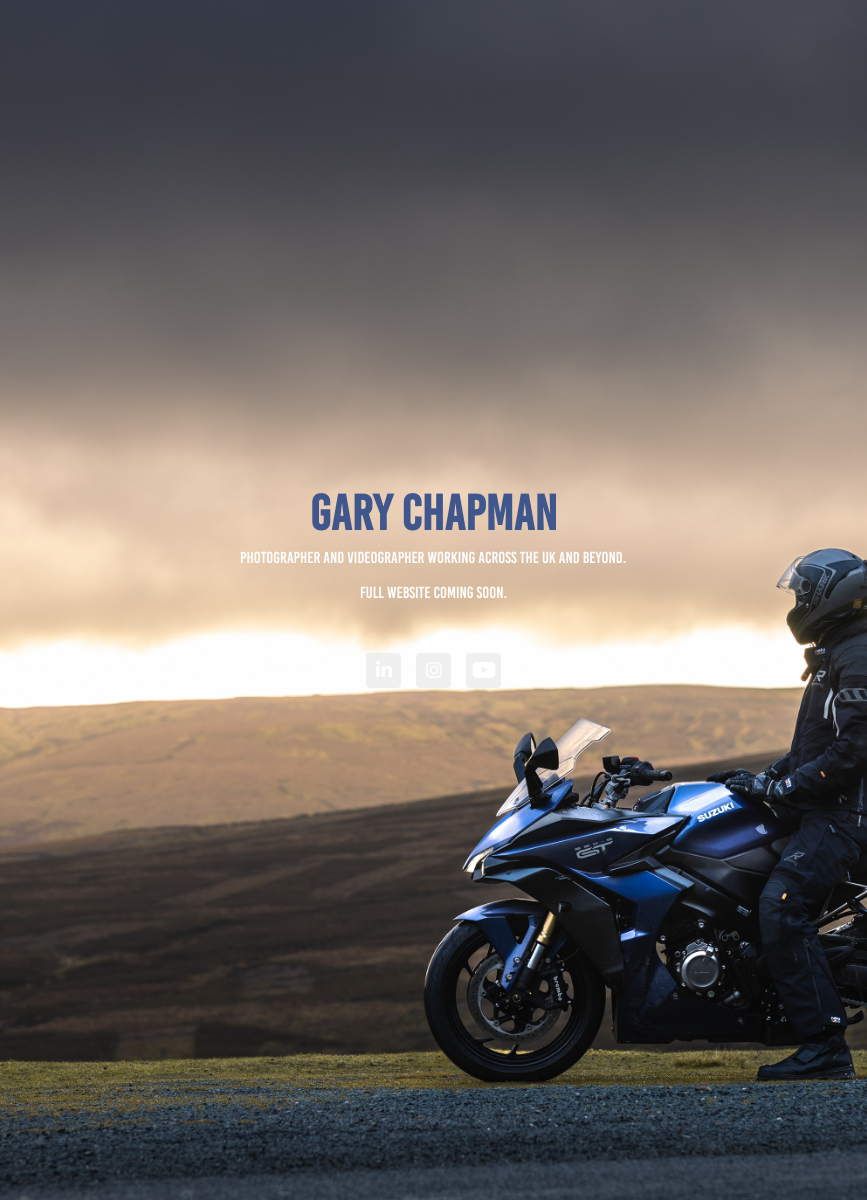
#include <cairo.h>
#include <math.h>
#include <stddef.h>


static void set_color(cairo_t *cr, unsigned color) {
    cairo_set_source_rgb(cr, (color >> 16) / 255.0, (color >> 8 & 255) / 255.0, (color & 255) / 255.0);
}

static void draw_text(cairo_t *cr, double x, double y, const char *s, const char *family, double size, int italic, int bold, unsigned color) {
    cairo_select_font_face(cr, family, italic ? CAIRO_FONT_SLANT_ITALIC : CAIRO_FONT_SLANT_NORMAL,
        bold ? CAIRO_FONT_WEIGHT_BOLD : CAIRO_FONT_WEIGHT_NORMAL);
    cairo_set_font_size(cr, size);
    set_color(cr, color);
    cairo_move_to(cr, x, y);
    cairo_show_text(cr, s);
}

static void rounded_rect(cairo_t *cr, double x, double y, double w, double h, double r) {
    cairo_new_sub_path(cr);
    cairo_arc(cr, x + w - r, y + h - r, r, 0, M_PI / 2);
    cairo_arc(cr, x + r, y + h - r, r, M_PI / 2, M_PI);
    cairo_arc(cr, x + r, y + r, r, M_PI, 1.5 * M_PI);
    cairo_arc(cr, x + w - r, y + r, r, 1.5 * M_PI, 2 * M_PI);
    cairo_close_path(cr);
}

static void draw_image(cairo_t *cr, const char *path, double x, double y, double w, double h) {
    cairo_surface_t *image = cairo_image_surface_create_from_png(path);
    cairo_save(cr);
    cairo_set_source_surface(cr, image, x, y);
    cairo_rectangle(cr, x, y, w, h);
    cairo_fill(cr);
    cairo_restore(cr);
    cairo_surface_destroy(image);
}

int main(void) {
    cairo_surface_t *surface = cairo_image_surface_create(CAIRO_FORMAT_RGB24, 867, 1200);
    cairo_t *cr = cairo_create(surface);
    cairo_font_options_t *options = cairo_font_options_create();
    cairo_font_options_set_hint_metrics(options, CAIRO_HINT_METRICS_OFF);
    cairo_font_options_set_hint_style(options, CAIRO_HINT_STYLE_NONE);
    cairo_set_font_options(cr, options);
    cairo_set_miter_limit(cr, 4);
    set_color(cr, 0xFFFFFF);
    cairo_paint(cr);
    draw_image(cr, "assets/img1.png", 0, 0, 867, 1200);
    draw_text(cr, 310, 530, "Gary Chapman", "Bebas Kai", 50, 0, 1, 0x40578E);
    draw_text(cr, 240, 563, "Photographer and Videographer working across the UK and beyond.", "Bebas Kai", 16, 0, 0, 0xFFFFFF);
    draw_text(cr, 360, 598, "Full Website Coming Soon.", "Bebas Kai", 16, 0, 0, 0xFFFFFF);
    cairo_set_source_rgba(cr, 0.91, 0.91, 0.91, 0.63);
    rounded_rect(cr, 366, 653, 35, 35, 4);
    cairo_fill(cr);
    draw_image(cr, "assets/img2.png", 376, 661, 16, 16);
    rounded_rect(cr, 416, 653, 35, 35, 4);
    cairo_fill(cr);
    draw_image(cr, "assets/img3.png", 426, 662, 16, 16);
    rounded_rect(cr, 466, 653, 35, 35, 4);
    cairo_fill(cr);
    draw_image(cr, "assets/img4.png", 472, 662, 24, 16);
    cairo_surface_write_to_png(surface, "output.png");
    cairo_font_options_destroy(options);
    cairo_destroy(cr);
    cairo_surface_destroy(surface);
    return 0;
}
